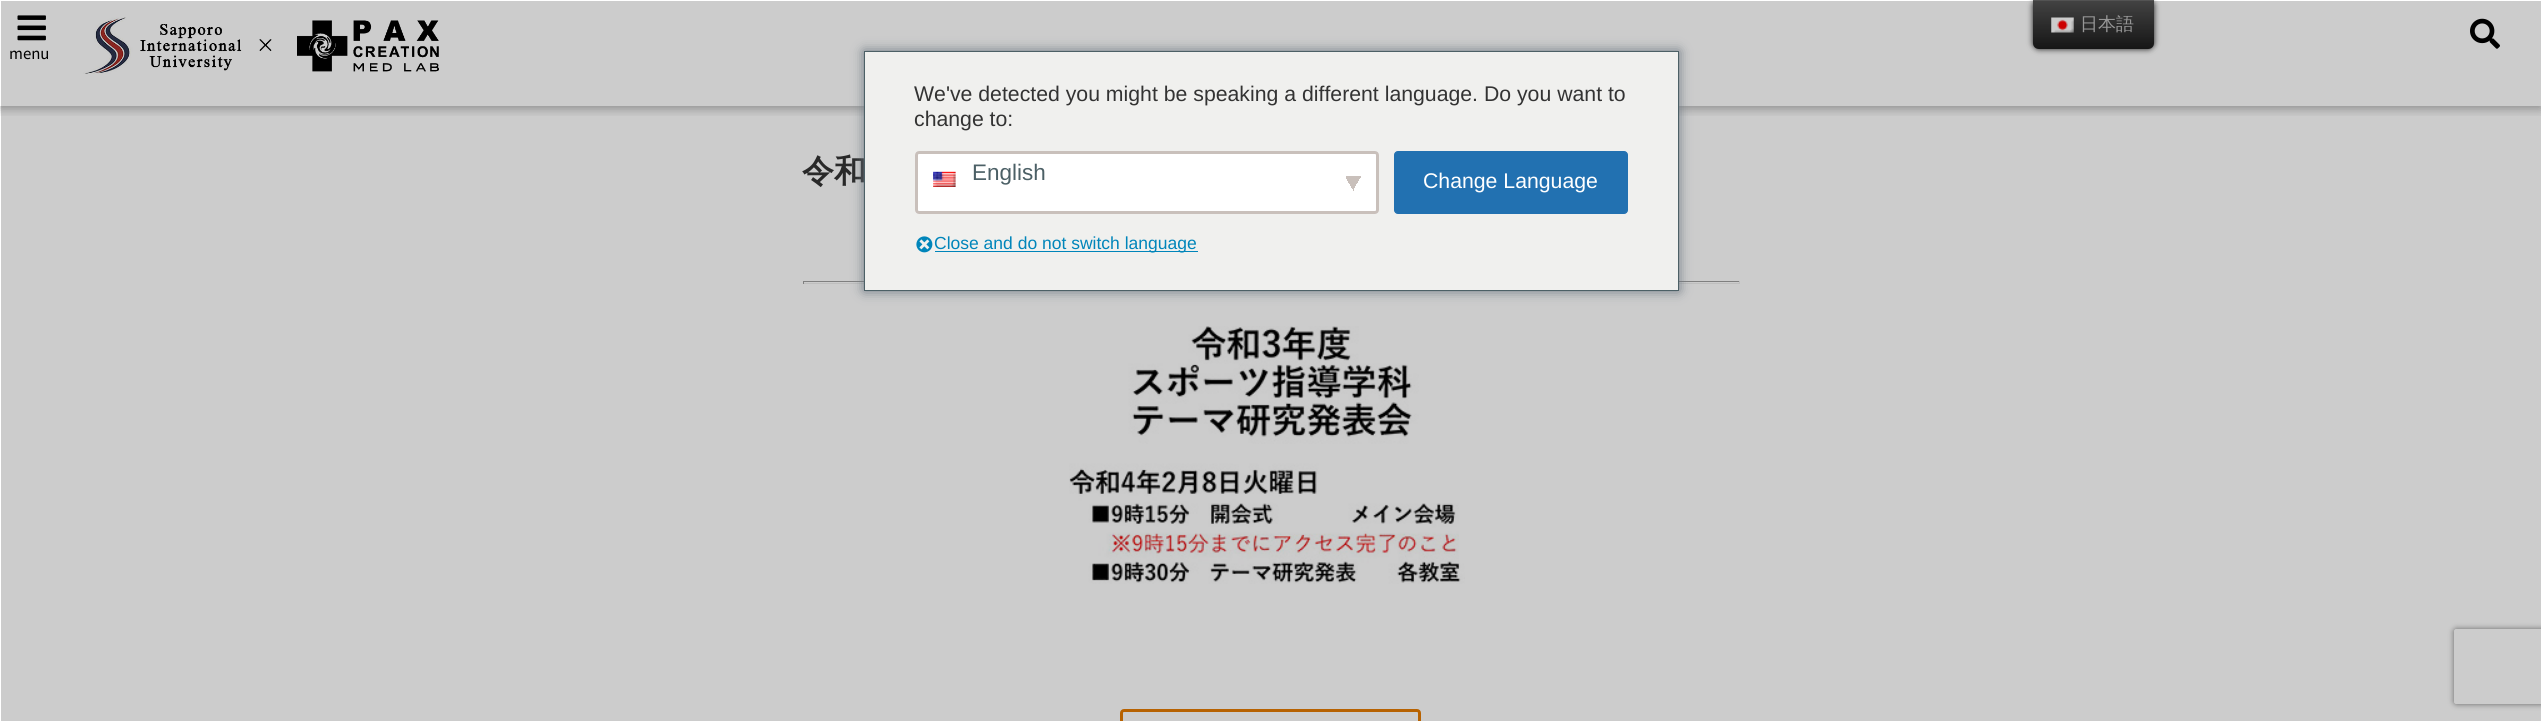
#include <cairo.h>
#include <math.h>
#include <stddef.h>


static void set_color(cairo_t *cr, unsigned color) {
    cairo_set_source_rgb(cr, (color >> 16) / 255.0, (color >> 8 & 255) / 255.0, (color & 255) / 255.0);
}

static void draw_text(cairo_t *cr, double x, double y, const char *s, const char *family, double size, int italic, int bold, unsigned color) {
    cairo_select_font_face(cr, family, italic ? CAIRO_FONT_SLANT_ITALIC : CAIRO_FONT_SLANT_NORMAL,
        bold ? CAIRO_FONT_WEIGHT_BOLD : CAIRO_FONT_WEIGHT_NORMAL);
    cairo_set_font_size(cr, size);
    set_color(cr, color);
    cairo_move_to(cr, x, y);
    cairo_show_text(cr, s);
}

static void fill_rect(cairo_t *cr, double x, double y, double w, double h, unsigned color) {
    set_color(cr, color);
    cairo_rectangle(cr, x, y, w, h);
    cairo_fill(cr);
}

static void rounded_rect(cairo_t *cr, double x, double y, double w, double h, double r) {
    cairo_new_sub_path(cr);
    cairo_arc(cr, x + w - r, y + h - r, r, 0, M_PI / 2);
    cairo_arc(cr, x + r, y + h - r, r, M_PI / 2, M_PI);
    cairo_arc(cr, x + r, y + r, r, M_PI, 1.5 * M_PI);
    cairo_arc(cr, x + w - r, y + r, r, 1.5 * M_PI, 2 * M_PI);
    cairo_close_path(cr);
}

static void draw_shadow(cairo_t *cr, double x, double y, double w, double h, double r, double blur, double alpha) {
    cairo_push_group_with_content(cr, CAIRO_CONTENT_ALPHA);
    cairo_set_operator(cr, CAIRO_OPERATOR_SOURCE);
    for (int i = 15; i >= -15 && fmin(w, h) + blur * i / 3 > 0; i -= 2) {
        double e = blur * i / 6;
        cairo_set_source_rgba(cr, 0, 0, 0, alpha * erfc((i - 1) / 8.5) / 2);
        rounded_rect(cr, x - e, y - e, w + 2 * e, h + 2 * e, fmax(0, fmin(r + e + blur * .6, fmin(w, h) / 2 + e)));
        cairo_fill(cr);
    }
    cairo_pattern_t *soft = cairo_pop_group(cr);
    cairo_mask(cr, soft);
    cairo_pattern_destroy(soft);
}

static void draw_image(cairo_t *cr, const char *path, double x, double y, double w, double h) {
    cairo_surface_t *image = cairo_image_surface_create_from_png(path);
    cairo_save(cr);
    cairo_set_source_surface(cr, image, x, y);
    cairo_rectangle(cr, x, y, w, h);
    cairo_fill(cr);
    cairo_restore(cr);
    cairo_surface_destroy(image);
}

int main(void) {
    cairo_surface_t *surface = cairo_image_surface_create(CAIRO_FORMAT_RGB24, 2541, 721);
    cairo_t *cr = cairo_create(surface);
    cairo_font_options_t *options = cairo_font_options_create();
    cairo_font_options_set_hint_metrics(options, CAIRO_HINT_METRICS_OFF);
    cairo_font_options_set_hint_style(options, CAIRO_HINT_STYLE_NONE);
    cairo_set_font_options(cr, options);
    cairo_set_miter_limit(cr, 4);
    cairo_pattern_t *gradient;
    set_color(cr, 0xFFFFFF);
    cairo_paint(cr);
    set_color(cr, 0x212121);
    draw_shadow(cr, 2033, 0, 121, 49, 6, 3, 1);
    cairo_save(cr);
    cairo_rectangle(cr, 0, 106, 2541, 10);
    cairo_clip(cr);
    set_color(cr, 0x000000);
    draw_shadow(cr, 0, 3, 2541, 106, 0, 5, 0.3);
    cairo_restore(cr);
    gradient = cairo_pattern_create_linear(2093, 49, 2093, 0);
    cairo_pattern_add_color_stop_rgba(gradient, 0, 0.106, 0.106, 0.106, 1);
    cairo_pattern_add_color_stop_rgba(gradient, 1, 0.329, 0.329, 0.329, 1);
    cairo_set_source(cr, gradient);
    cairo_pattern_destroy(gradient);
    cairo_new_path(cr);
    cairo_move_to(cr, 2033, 0);
    cairo_line_to(cr, 2154, 0);
    cairo_line_to(cr, 2154, 43);
    cairo_curve_to(cr, 2154, 46.5, 2151.5, 49, 2148, 49);
    cairo_line_to(cr, 2039, 49);
    cairo_curve_to(cr, 2035.5, 49, 2033, 46.5, 2033, 43);
    cairo_close_path(cr);
    cairo_fill(cr);
    draw_image(cr, "assets/img1.png", 2051, 17, 23, 16);
    draw_text(cr, 2080, 30, "日本語", "WenQuanYi Zen Hei Medium", 18, 0, 0, 0xBDBDBD);
    draw_image(cr, "assets/img2.png", 83, 17, 356, 57);
    draw_image(cr, "assets/img3.png", 2470, 18, 30, 31);
    draw_image(cr, "assets/img4.png", 17, 15, 29, 26);
    draw_text(cr, 9, 59, "menu", "Noto Sans JP", 15, 0, 0, 0x000000);
    draw_text(cr, 802, 182, "令和", "WenQuanYi Zen Hei", 32, 0, 1, 0x333333);
    fill_rect(cr, 803, 281, 937, 1, 0x9F9F9F);
    fill_rect(cr, 1739, 281, 1, 3, 0xEEEEEE);
    fill_rect(cr, 803, 283, 937, 1, 0xEEEEEE);
    fill_rect(cr, 803, 281, 1, 3, 0x9F9F9F);
    draw_image(cr, "assets/img5.png", 1069, 326, 396, 258);
    rounded_rect(cr, 1121.5, 710.5, 298, 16, 2.5);
    set_color(cr, 0xE57B01);
    cairo_set_line_width(cr, 3);
    cairo_stroke(cr);
    cairo_save(cr);
    cairo_set_fill_rule(cr, CAIRO_FILL_RULE_EVEN_ODD);
    cairo_new_path(cr);
    cairo_move_to(cr, 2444, 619);
    cairo_line_to(cr, 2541, 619);
    cairo_line_to(cr, 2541, 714);
    cairo_line_to(cr, 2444, 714);
    cairo_close_path(cr);
    cairo_move_to(cr, 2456.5, 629);
    cairo_line_to(cr, 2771.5, 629);
    cairo_curve_to(cr, 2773, 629, 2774, 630, 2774, 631.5);
    cairo_line_to(cr, 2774, 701.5);
    cairo_curve_to(cr, 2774, 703, 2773, 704, 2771.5, 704);
    cairo_line_to(cr, 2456.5, 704);
    cairo_curve_to(cr, 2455, 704, 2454, 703, 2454, 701.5);
    cairo_line_to(cr, 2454, 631.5);
    cairo_curve_to(cr, 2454, 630, 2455, 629, 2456.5, 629);
    cairo_close_path(cr);
    cairo_clip(cr);
    set_color(cr, 0x808080);
    draw_shadow(cr, 2454, 629, 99, 75, 2.5, 3, 1);
    cairo_restore(cr);
    cairo_set_source_rgba(cr, 0, 0, 0, 0.2);
    cairo_rectangle(cr, 1, 1, 2540, 720);
    cairo_fill(cr);
    set_color(cr, 0x6C7781);
    draw_shadow(cr, 864, 51, 815, 240, 0, 6, 1);
    set_color(cr, 0xF0F0EE);
    cairo_rectangle(cr, 864.5, 51.5, 814, 239);
    cairo_fill_preserve(cr);
    set_color(cr, 0x4C6066);
    cairo_set_line_width(cr, 1);
    cairo_stroke(cr);
    draw_text(cr, 914, 101, "We've detected you might be speaking a different language. Do you want to", "Liberation Sans", 21.25, 0, 0, 0x333333);
    draw_text(cr, 914, 126, "change to:", "Liberation Sans", 21.25, 0, 0, 0x333333);
    set_color(cr, 0xFFFFFF);
    rounded_rect(cr, 915, 151, 464, 63, 4);
    cairo_fill(cr);
    gradient = cairo_pattern_create_linear(1351, 180, 1363, 187);
    cairo_pattern_add_color_stop_rgba(gradient, 0.5, 0.788, 0.753, 0.733, 1);
    cairo_pattern_add_color_stop_rgba(gradient, 0.5, 1, 1, 1, 1);
    cairo_set_source(cr, gradient);
    cairo_pattern_destroy(gradient);
    cairo_rectangle(cr, 1354, 176, 7, 15);
    cairo_fill(cr);
    gradient = cairo_pattern_create_linear(1343, 187, 1355, 180);
    cairo_pattern_add_color_stop_rgba(gradient, 0.5, 1, 1, 1, 1);
    cairo_pattern_add_color_stop_rgba(gradient, 0.5, 0.788, 0.753, 0.733, 1);
    cairo_set_source(cr, gradient);
    cairo_pattern_destroy(gradient);
    cairo_rectangle(cr, 1346, 176, 8, 15);
    cairo_fill(cr);
    rounded_rect(cr, 916.5, 152.5, 461, 60, 2.5);
    set_color(cr, 0xC9C0BB);
    cairo_set_line_width(cr, 3);
    cairo_stroke(cr);
    draw_image(cr, "assets/img6.png", 933, 171, 23, 16);
    draw_text(cr, 972, 180, "English", "Liberation Sans", 22.5, 0, 0, 0x4C6066);
    set_color(cr, 0x2271B1);
    rounded_rect(cr, 1394.5, 151.5, 233, 62, 3.5);
    cairo_fill_preserve(cr);
    cairo_set_line_width(cr, 1);
    cairo_stroke(cr);
    draw_text(cr, 1423, 188, "Change Language", "Liberation Sans", 21.25, 0, 0, 0xFFFFFF);
    draw_image(cr, "assets/img7.png", 916, 236, 17, 17);
    fill_rect(cr, 935, 251, 263, 1, 0x0085BA);
    draw_text(cr, 934, 249, "Close and do not switch language", "Liberation Sans", 17.5, 0, 0, 0x0085BA);
    cairo_surface_write_to_png(surface, "output.png");
    cairo_font_options_destroy(options);
    cairo_destroy(cr);
    cairo_surface_destroy(surface);
    return 0;
}
